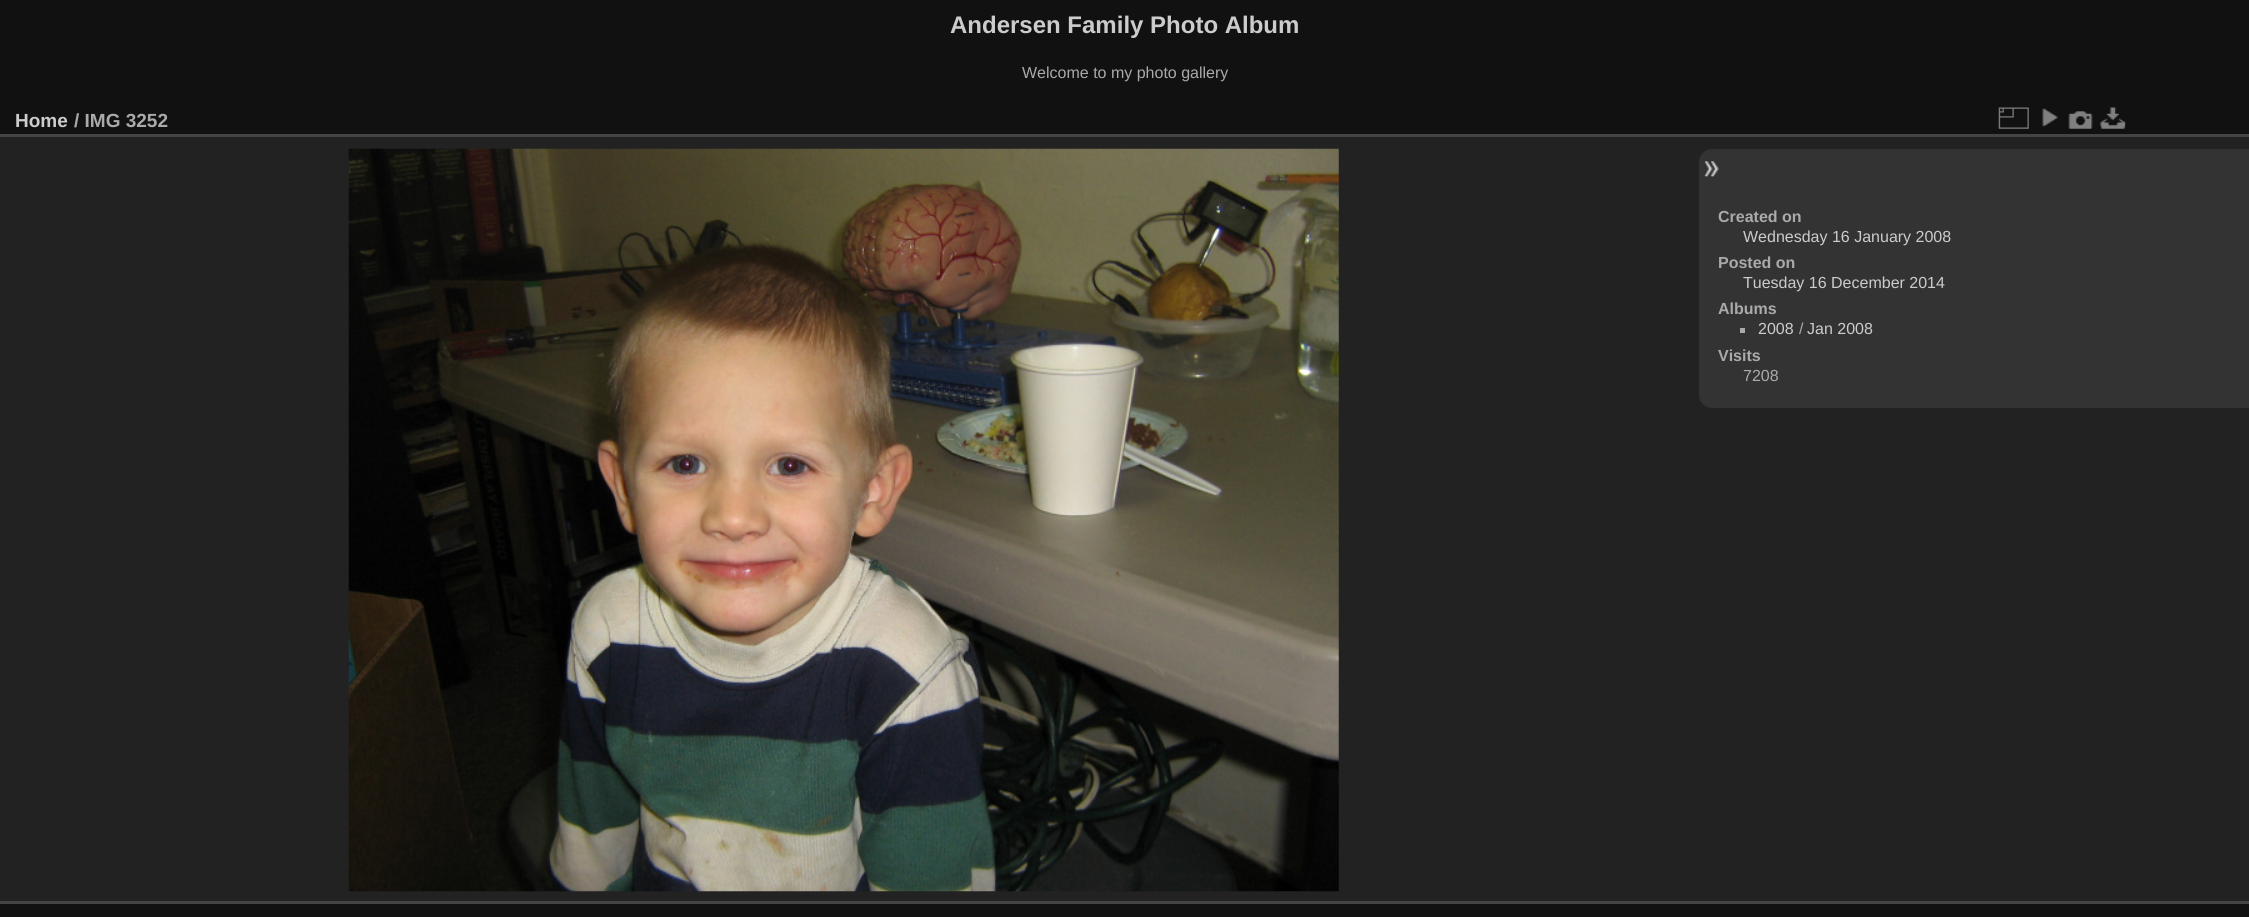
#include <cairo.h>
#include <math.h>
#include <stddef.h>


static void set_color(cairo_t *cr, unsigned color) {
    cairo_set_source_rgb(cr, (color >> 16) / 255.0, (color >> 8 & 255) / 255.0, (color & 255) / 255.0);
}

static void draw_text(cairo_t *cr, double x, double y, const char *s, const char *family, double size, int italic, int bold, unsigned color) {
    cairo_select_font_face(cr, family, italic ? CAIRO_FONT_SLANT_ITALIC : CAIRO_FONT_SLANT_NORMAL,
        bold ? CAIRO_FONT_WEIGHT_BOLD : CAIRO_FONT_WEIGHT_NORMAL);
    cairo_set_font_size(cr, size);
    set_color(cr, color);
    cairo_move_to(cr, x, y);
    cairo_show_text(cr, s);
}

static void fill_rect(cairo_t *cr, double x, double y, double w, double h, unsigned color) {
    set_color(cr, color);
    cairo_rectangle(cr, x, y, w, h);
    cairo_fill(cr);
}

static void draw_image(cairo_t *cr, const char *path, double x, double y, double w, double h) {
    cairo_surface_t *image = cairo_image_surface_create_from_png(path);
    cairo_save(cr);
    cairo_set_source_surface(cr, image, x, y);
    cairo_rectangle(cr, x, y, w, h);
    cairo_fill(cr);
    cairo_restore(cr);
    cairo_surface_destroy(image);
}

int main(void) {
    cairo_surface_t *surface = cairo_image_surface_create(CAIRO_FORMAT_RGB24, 2249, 917);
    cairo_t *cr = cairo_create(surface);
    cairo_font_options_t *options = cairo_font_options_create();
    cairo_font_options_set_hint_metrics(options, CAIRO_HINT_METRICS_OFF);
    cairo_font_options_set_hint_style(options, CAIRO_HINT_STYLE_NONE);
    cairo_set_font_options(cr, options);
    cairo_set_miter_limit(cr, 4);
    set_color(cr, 0x111111);
    cairo_paint(cr);
    draw_text(cr, 950, 33, "Andersen Family Photo Album", "Liberation Sans", 24, 0, 1, 0xCCCCCC);
    draw_text(cr, 1022, 78, "Welcome to my photo gallery", "Liberation Sans", 16, 0, 0, 0xAAAAAA);
    fill_rect(cr, 0, 137, 2249, 764, 0x222222);
    fill_rect(cr, 0, 901, 2249, 3, 0x444444);
    fill_rect(cr, 0, 134, 2249, 3, 0x444444);
    draw_text(cr, 15, 127, "Home", "Liberation Sans", 19, 0, 1, 0xCCCCCC);
    draw_text(cr, 74, 127, "/ IMG 3252", "Liberation Sans", 19, 0, 1, 0xAAAAAA);
    draw_image(cr, "assets/img1.png", 1998, 107, 31, 22);
    draw_image(cr, "assets/img2.png", 2042, 108, 16, 19);
    draw_image(cr, "assets/img3.png", 2068, 111, 25, 18);
    draw_image(cr, "assets/img4.png", 2100, 107, 26, 22);
    draw_image(cr, "assets/img5.png", 348, 148, 991, 744);
    set_color(cr, 0x333333);
    cairo_new_path(cr);
    cairo_move_to(cr, 1712, 149);
    cairo_line_to(cr, 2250, 149);
    cairo_line_to(cr, 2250, 408);
    cairo_line_to(cr, 1712, 408);
    cairo_curve_to(cr, 1705, 408, 1699, 402, 1699, 395);
    cairo_line_to(cr, 1699, 162);
    cairo_curve_to(cr, 1699, 155, 1705, 149, 1712, 149);
    cairo_close_path(cr);
    cairo_fill(cr);
    draw_image(cr, "assets/img6.png", 1704, 161, 15, 16);
    draw_text(cr, 1718, 222, "Created on", "Liberation Sans", 16, 0, 1, 0xAAAAAA);
    draw_text(cr, 1743, 242, "Wednesday 16 January 2008", "Liberation Sans", 16, 0, 0, 0xCCCCCC);
    draw_text(cr, 1718, 268, "Posted on", "Liberation Sans", 16, 0, 1, 0xAAAAAA);
    draw_text(cr, 1743, 288, "Tuesday 16 December 2014", "Liberation Sans", 16, 0, 0, 0xCCCCCC);
    draw_text(cr, 1718, 314, "Albums", "Liberation Sans", 16, 0, 1, 0xAAAAAA);
    fill_rect(cr, 1740, 328, 5, 5, 0xAAAAAA);
    draw_text(cr, 1758, 334, "2008", "Liberation Sans", 16, 0, 0, 0xCCCCCC);
    draw_text(cr, 1799, 334, "/", "Liberation Sans", 16, 0, 0, 0xAAAAAA);
    draw_text(cr, 1807, 334, "Jan 2008", "Liberation Sans", 16, 0, 0, 0xCCCCCC);
    draw_text(cr, 1718, 361, "Visits", "Liberation Sans", 16, 0, 1, 0xAAAAAA);
    draw_text(cr, 1743, 381, "7208", "Liberation Sans", 16, 0, 0, 0xAAAAAA);
    cairo_surface_write_to_png(surface, "output.png");
    cairo_font_options_destroy(options);
    cairo_destroy(cr);
    cairo_surface_destroy(surface);
    return 0;
}
